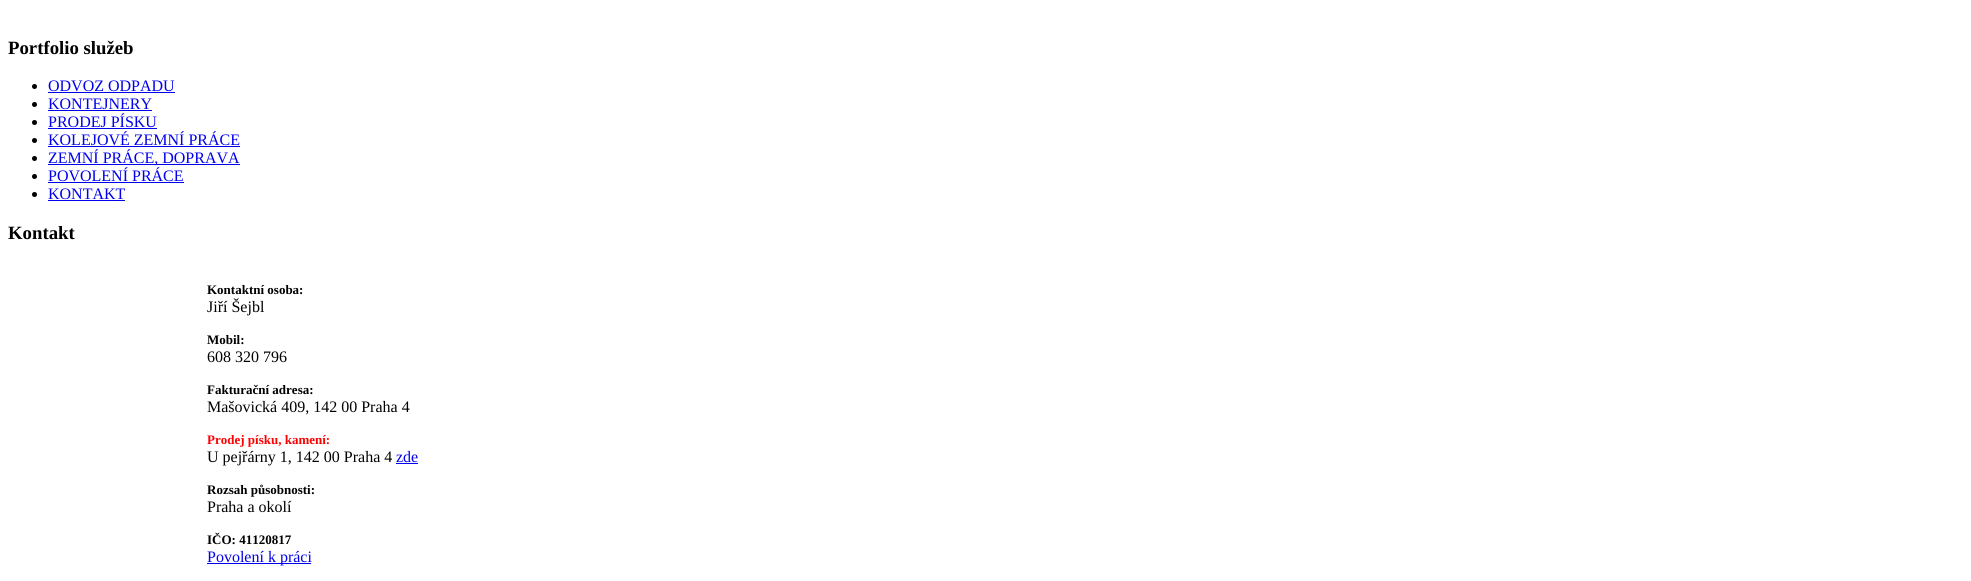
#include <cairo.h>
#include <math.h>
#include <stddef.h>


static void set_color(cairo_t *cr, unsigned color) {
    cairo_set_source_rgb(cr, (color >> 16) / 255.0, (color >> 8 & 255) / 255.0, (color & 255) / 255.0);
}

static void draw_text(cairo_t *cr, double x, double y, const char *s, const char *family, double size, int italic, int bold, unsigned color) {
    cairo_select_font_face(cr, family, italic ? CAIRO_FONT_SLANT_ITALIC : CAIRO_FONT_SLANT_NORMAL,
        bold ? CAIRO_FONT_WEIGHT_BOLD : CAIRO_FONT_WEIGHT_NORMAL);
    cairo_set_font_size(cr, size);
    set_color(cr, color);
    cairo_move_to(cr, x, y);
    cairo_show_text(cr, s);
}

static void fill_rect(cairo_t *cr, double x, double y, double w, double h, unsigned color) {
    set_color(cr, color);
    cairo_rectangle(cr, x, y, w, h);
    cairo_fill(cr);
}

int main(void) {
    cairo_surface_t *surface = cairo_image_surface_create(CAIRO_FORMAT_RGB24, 1971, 581);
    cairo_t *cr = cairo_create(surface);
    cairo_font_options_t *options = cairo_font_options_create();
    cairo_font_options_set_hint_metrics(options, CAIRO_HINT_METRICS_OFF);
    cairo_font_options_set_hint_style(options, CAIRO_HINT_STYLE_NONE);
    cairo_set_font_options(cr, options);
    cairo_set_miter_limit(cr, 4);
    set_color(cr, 0xFFFFFF);
    cairo_paint(cr);
    draw_text(cr, 8, 54, "Portfolio služeb", "Liberation Serif", 18.75, 0, 1, 0x000000);
    cairo_new_path(cr);
    cairo_arc(cr, 34.5, 86.5, 2.5, 0, 2 * M_PI);
    cairo_fill(cr);
    draw_text(cr, 48, 91, "ODVOZ ODPADU", "Liberation Serif", 16, 0, 0, 0x0000EE);
    fill_rect(cr, 48, 92, 127, 1, 0x0000EE);
    set_color(cr, 0x000000);
    cairo_new_path(cr);
    cairo_arc(cr, 34.5, 104.5, 2.5, 0, 2 * M_PI);
    cairo_fill(cr);
    draw_text(cr, 48, 109, "KONTEJNERY", "Liberation Serif", 16, 0, 0, 0x0000EE);
    fill_rect(cr, 48, 110, 104, 1, 0x0000EE);
    set_color(cr, 0x000000);
    cairo_new_path(cr);
    cairo_arc(cr, 34.5, 122.5, 2.5, 0, 2 * M_PI);
    cairo_fill(cr);
    draw_text(cr, 48, 127, "PRODEJ PÍSKU", "Liberation Serif", 16, 0, 0, 0x0000EE);
    fill_rect(cr, 48, 128, 109, 1, 0x0000EE);
    set_color(cr, 0x000000);
    cairo_new_path(cr);
    cairo_arc(cr, 34.5, 140.5, 2.5, 0, 2 * M_PI);
    cairo_fill(cr);
    draw_text(cr, 48, 145, "KOLEJOVÉ ZEMNÍ PRÁCE", "Liberation Serif", 16, 0, 0, 0x0000EE);
    fill_rect(cr, 48, 146, 192, 1, 0x0000EE);
    set_color(cr, 0x000000);
    cairo_new_path(cr);
    cairo_arc(cr, 34.5, 158.5, 2.5, 0, 2 * M_PI);
    cairo_fill(cr);
    fill_rect(cr, 48, 164, 192, 1, 0x0000EE);
    draw_text(cr, 48, 163, "ZEMNÍ PRÁCE, DOPRAVA", "Liberation Serif", 16, 0, 0, 0x0000EE);
    set_color(cr, 0x000000);
    cairo_new_path(cr);
    cairo_arc(cr, 34.5, 176.5, 2.5, 0, 2 * M_PI);
    cairo_fill(cr);
    draw_text(cr, 48, 181, "POVOLENÍ PRÁCE", "Liberation Serif", 16, 0, 0, 0x0000EE);
    fill_rect(cr, 48, 182, 136, 1, 0x0000EE);
    set_color(cr, 0x000000);
    cairo_new_path(cr);
    cairo_arc(cr, 34.5, 194.5, 2.5, 0, 2 * M_PI);
    cairo_fill(cr);
    draw_text(cr, 48, 199, "KONTAKT", "Liberation Serif", 16, 0, 0, 0x0000EE);
    fill_rect(cr, 48, 200, 77, 1, 0x0000EE);
    draw_text(cr, 8, 239, "Kontakt", "Liberation Serif", 18.75, 0, 1, 0x000000);
    draw_text(cr, 207, 294, "Kontaktní osoba:", "Liberation Serif", 13, 0, 1, 0x000000);
    draw_text(cr, 207, 312, "Jiří Šejbl", "Liberation Serif", 16, 0, 0, 0x000000);
    draw_text(cr, 207, 344, "Mobil:", "Liberation Serif", 13, 0, 1, 0x000000);
    draw_text(cr, 207, 362, "608 320 796", "Liberation Serif", 16, 0, 0, 0x000000);
    draw_text(cr, 207, 394, "Fakturační adresa:", "Liberation Serif", 13, 0, 1, 0x000000);
    draw_text(cr, 207, 412, "Mašovická 409, 142 00 Praha 4", "Liberation Serif", 16, 0, 0, 0x000000);
    draw_text(cr, 207, 444, "Prodej písku, kamení:", "Liberation Serif", 13, 0, 1, 0xFF0000);
    draw_text(cr, 207, 462, "U pejřárny 1, 142 00 Praha 4", "Liberation Serif", 16, 0, 0, 0x000000);
    draw_text(cr, 396, 462, "zde", "Liberation Serif", 16, 0, 0, 0x0000EE);
    fill_rect(cr, 396, 463, 22, 1, 0x0000EE);
    draw_text(cr, 207, 494, "Rozsah působnosti:", "Liberation Serif", 13, 0, 1, 0x000000);
    draw_text(cr, 207, 512, "Praha a okolí", "Liberation Serif", 16, 0, 0, 0x000000);
    draw_text(cr, 207, 544, "IČO: 41120817", "Liberation Serif", 13, 0, 1, 0x000000);
    fill_rect(cr, 207, 563, 104, 1, 0x0000EE);
    draw_text(cr, 207, 562, "Povolení k práci", "Liberation Serif", 16, 0, 0, 0x0000EE);
    cairo_surface_write_to_png(surface, "output.png");
    cairo_font_options_destroy(options);
    cairo_destroy(cr);
    cairo_surface_destroy(surface);
    return 0;
}
